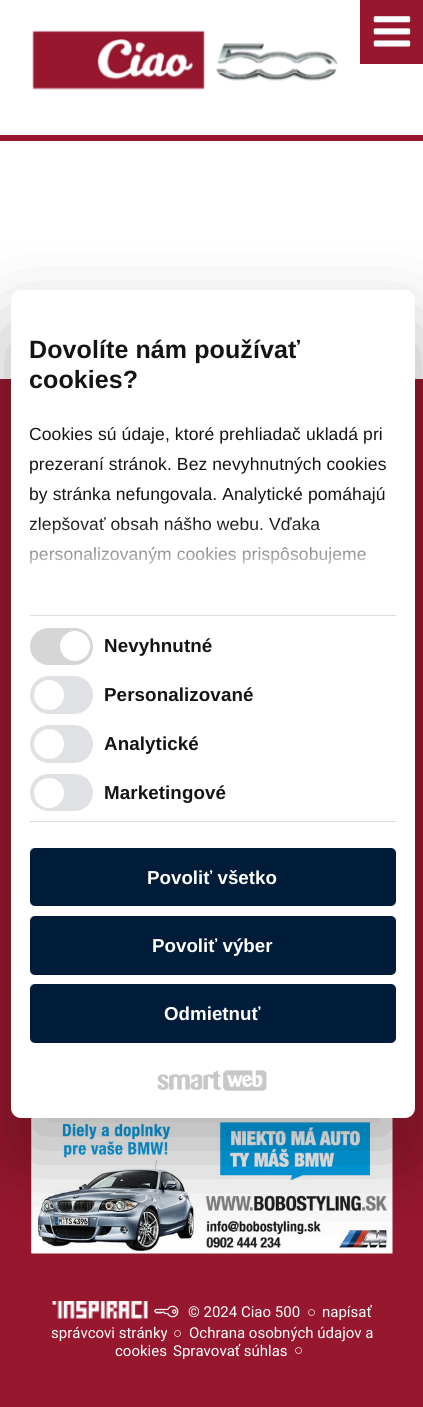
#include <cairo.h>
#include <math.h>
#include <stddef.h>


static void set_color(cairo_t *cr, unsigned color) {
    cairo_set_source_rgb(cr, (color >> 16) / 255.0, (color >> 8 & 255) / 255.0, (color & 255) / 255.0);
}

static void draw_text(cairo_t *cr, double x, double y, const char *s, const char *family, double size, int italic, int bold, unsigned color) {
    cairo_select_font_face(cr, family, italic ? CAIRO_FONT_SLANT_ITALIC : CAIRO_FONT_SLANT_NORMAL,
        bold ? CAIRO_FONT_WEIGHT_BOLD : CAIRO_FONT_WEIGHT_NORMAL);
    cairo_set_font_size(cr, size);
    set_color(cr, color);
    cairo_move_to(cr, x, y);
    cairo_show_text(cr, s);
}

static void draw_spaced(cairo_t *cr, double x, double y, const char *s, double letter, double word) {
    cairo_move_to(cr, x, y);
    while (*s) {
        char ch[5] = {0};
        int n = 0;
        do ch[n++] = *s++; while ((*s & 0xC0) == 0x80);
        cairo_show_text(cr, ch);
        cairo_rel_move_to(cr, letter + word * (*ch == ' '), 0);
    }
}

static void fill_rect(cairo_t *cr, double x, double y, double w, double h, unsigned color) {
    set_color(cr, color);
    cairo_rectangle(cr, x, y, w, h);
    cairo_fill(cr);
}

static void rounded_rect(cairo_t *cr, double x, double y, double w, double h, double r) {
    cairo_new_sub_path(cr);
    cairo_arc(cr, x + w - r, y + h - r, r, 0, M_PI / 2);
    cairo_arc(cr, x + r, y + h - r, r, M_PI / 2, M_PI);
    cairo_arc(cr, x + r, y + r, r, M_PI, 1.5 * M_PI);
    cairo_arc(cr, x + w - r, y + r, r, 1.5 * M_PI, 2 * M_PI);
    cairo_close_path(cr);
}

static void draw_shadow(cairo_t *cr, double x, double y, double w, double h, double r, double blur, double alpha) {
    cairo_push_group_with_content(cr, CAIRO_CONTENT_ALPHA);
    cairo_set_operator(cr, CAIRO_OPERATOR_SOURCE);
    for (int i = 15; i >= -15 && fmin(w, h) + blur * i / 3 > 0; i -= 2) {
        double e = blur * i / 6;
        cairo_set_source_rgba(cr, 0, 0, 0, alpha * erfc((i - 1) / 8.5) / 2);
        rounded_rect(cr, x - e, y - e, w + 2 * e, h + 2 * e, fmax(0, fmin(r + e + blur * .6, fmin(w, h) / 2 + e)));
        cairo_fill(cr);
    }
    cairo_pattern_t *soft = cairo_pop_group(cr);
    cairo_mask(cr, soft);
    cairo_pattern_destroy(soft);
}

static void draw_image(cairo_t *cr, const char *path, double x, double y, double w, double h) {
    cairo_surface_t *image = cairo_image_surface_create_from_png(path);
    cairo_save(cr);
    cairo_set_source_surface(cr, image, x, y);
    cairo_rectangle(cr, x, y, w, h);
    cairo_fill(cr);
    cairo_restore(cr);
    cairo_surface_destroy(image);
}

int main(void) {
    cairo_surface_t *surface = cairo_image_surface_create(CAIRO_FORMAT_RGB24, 423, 1407);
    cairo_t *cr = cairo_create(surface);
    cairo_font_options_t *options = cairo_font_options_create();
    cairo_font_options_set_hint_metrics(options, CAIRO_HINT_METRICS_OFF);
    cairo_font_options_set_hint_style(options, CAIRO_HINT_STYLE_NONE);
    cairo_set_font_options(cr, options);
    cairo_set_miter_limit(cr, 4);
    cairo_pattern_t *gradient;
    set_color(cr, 0xFFFFFF);
    cairo_paint(cr);
    fill_rect(cr, 360, 0, 63, 64, 0x97172E);
    draw_image(cr, "assets/img1.png", 373, 16, 38, 31);
    fill_rect(cr, 0, 135, 423, 6, 0x97172E);
    draw_image(cr, "assets/img2.png", 32, 30, 306, 60);
    fill_rect(cr, 0, 379, 423, 1028, 0x97172E);
    draw_image(cr, "assets/img5.png", 31, 1118, 362, 136);
    set_color(cr, 0x000000);
    draw_shadow(cr, 11, 330, 404, 828, 10, 42.5, 0.3);
    set_color(cr, 0xFFFFFF);
    rounded_rect(cr, 11, 290, 404, 828, 10);
    cairo_fill(cr);
    cairo_select_font_face(cr, "Liberation Sans", CAIRO_FONT_SLANT_NORMAL, CAIRO_FONT_WEIGHT_BOLD);
    cairo_set_font_size(cr, 25);
    set_color(cr, 0x141414);
    draw_spaced(cr, 29, 358, "Dovolíte nám používať", 0.1, 0);
    cairo_save(cr);
    cairo_rectangle(cr, 30, 334, 366, 281);
    cairo_clip(cr);
    draw_spaced(cr, 29, 388, "cookies?", 0.1, 0);
    cairo_select_font_face(cr, "Liberation Sans", CAIRO_FONT_SLANT_NORMAL, CAIRO_FONT_WEIGHT_NORMAL);
    cairo_set_font_size(cr, 17.5);
    draw_spaced(cr, 29, 440, "Cookies sú údaje, ktoré prehliadač ukladá pri", 0.1, 0);
    draw_spaced(cr, 29, 470, "prezeraní stránok. Bez nevyhnutných cookies", 0.1, 0);
    draw_spaced(cr, 29, 500, "by stránka nefungovala. Analytické pomáhajú", 0.1, 0);
    draw_spaced(cr, 29, 530, "zlepšovať obsah nášho webu. Vďaka", 0.1, 0);
    draw_spaced(cr, 29, 560, "personalizovaným cookies prispôsobujeme", 0.1, 0);
    cairo_restore(cr);
    gradient = cairo_pattern_create_linear(213, 615, 213, 521);
    cairo_pattern_add_color_stop_rgba(gradient, 0, 1, 1, 1, 1);
    cairo_pattern_add_color_stop_rgba(gradient, 0.5, 1, 1, 1, 0.8);
    cairo_pattern_add_color_stop_rgba(gradient, 1, 1, 1, 1, 0);
    cairo_set_source(cr, gradient);
    cairo_pattern_destroy(gradient);
    cairo_rectangle(cr, 30, 522, 337, 42);
    cairo_fill(cr);
    fill_rect(cr, 30, 615, 366, 1, 0xDDDDDD);
    fill_rect(cr, 30, 821, 366, 1, 0xDDDDDD);
    set_color(cr, 0xD6D6D6);
    rounded_rect(cr, 30, 628, 63, 37, 18.5);
    cairo_fill(cr);
    set_color(cr, 0xFFFFFF);
    cairo_arc(cr, 75, 646, 15, 0, 2 * M_PI);
    cairo_fill(cr);
    cairo_set_font_size(cr, 18.75);
    set_color(cr, 0x141414);
    draw_spaced(cr, 104, 652, "Nevyhnutné", 0.1, 0);
    set_color(cr, 0xDFE1E4);
    rounded_rect(cr, 30, 676, 63, 38, 19);
    cairo_fill(cr);
    set_color(cr, 0xFFFFFF);
    cairo_arc(cr, 49, 695, 15, 0, 2 * M_PI);
    cairo_fill(cr);
    set_color(cr, 0x141414);
    draw_spaced(cr, 104, 701, "Personalizované", 0.1, 0);
    set_color(cr, 0xDFE1E4);
    rounded_rect(cr, 30, 725, 63, 38, 19);
    cairo_fill(cr);
    set_color(cr, 0xFFFFFF);
    cairo_arc(cr, 49, 744, 15, 0, 2 * M_PI);
    cairo_fill(cr);
    set_color(cr, 0x141414);
    draw_spaced(cr, 104, 750, "Analytické", 0.1, 0);
    set_color(cr, 0xDFE1E4);
    rounded_rect(cr, 30, 774, 63, 37, 18.5);
    cairo_fill(cr);
    set_color(cr, 0xFFFFFF);
    cairo_arc(cr, 49, 793, 15, 0, 2 * M_PI);
    cairo_fill(cr);
    set_color(cr, 0x141414);
    draw_spaced(cr, 104, 799, "Marketingové", 0.1, 0);
    set_color(cr, 0x011C38);
    rounded_rect(cr, 30, 848, 366, 58, 5);
    cairo_fill(cr);
    draw_text(cr, 147, 884, "Povoliť všetko", "Liberation Sans", 18.75, 0, 1, 0xFFFFFF);
    set_color(cr, 0x011C38);
    rounded_rect(cr, 30, 916, 366, 59, 5);
    cairo_fill(cr);
    draw_text(cr, 152, 952, "Povoliť výber", "Liberation Sans", 18.75, 0, 1, 0xFFFFFF);
    set_color(cr, 0x011C38);
    rounded_rect(cr, 30, 984, 366, 59, 5);
    cairo_fill(cr);
    draw_text(cr, 164, 1020, "Odmietnuť", "Liberation Sans", 18.75, 0, 1, 0xFFFFFF);
    draw_image(cr, "assets/img3.png", 157, 1070, 65, 20);
    draw_image(cr, "assets/img4.png", 223, 1070, 44, 21);
    draw_image(cr, "assets/img6.png", 52, 1301, 96, 18);
    draw_image(cr, "assets/img7.png", 154, 1305, 25, 13);
    draw_text(cr, 188, 1317, "© 2024 Ciao 500", "Roboto", 15, 0, 0, 0xFFFFFF);
    draw_text(cr, 307, 1317, "○", "Liberation Sans", 15, 0, 0, 0xFFFFFF);
    draw_text(cr, 322, 1317, "napísať", "Roboto", 15, 0, 0, 0xFFFFFF);
    draw_text(cr, 51, 1338, "správcovi stránky", "Roboto", 15, 0, 0, 0xFFFFFF);
    draw_text(cr, 173, 1338, "○", "Liberation Sans", 15, 0, 0, 0xFFFFFF);
    draw_text(cr, 189, 1338, "Ochrana osobných údajov a", "Roboto", 15, 0, 0, 0xFFFFFF);
    draw_text(cr, 115, 1356, "cookies", "Roboto", 15, 0, 0, 0xFFFFFF);
    draw_text(cr, 173, 1356, "Spravovať súhlas", "Roboto", 15, 0, 0, 0xFFFFFF);
    draw_text(cr, 294, 1355, "○", "Liberation Sans", 15, 0, 0, 0xFFFFFF);
    cairo_surface_write_to_png(surface, "output.png");
    cairo_font_options_destroy(options);
    cairo_destroy(cr);
    cairo_surface_destroy(surface);
    return 0;
}
